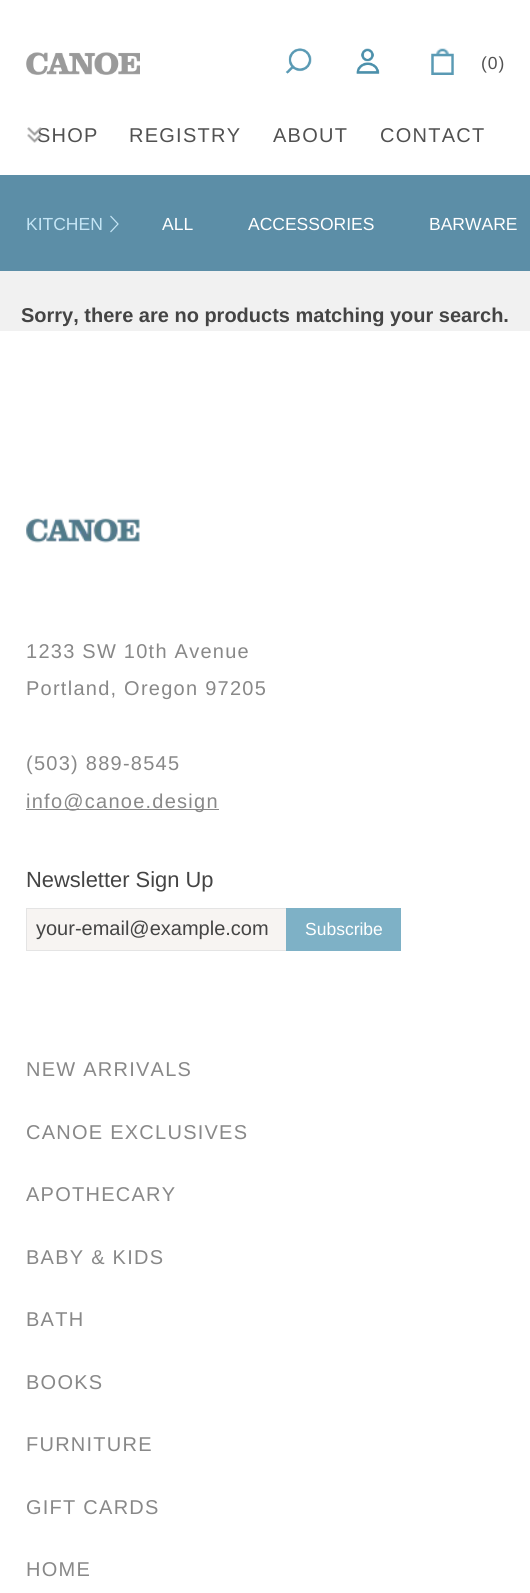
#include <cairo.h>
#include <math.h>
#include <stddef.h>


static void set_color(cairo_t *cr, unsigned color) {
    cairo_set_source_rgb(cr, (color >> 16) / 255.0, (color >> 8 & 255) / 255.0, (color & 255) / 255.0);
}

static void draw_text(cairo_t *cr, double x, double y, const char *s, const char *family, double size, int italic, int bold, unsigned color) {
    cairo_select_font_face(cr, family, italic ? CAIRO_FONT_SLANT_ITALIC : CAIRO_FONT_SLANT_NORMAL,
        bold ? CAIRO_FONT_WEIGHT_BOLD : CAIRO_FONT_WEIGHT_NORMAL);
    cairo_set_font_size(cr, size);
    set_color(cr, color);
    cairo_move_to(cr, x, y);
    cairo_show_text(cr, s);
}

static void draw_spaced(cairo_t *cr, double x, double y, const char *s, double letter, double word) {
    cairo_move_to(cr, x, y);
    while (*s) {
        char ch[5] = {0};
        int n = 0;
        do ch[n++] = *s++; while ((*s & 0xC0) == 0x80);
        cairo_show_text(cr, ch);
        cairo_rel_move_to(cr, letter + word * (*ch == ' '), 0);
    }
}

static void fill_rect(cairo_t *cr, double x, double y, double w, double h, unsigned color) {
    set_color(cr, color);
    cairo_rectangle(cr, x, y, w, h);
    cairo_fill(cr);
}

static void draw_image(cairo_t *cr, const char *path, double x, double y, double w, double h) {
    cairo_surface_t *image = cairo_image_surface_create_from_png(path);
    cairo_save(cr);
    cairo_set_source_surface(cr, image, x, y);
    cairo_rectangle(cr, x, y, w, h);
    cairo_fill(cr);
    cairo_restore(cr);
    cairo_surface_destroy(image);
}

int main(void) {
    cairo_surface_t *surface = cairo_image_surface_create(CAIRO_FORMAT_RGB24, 530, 1593);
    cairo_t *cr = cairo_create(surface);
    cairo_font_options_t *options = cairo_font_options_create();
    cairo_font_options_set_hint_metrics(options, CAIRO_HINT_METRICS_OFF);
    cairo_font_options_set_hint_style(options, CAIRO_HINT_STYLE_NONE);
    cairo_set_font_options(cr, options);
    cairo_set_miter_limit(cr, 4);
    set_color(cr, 0xFFFFFF);
    cairo_paint(cr);
    draw_image(cr, "assets/img1.png", 26, 52, 114, 23);
    draw_image(cr, "assets/img2.png", 285, 48, 27, 26);
    draw_image(cr, "assets/img3.png", 356, 48, 24, 26);
    draw_image(cr, "assets/img4.png", 431, 48, 23, 27);
    cairo_select_font_face(cr, "Liberation Sans", CAIRO_FONT_SLANT_NORMAL, CAIRO_FONT_WEIGHT_NORMAL);
    cairo_set_font_size(cr, 17.5);
    set_color(cr, 0x515151);
    draw_spaced(cr, 481, 69, "(0)", 1, 0);
    cairo_set_font_size(cr, 20);
    draw_spaced(cr, 37, 142, "SHOP", 1.25, 0);
    draw_image(cr, "assets/img5.png", 27, 127, 15, 16);
    draw_spaced(cr, 129, 142, "REGISTRY", 1.25, 0);
    draw_spaced(cr, 273, 142, "ABOUT", 1.25, 0);
    draw_spaced(cr, 380, 142, "CONTACT", 1.25, 0);
    fill_rect(cr, 0, 271, 530, 60, 0xF1F1F1);
    fill_rect(cr, 0, 175, 530, 96, 0x5C8EA7);
    draw_text(cr, 26, 230, "KITCHEN", "Liberation Sans", 17.5, 0, 0, 0xC4E5F5);
    cairo_new_path(cr);
    cairo_move_to(cr, 110.5, 216);
    cairo_line_to(cr, 118, 224);
    cairo_line_to(cr, 110.5, 232);
    cairo_set_line_width(cr, 1.2);
    cairo_stroke(cr);
    draw_text(cr, 162, 230, "ALL", "Liberation Sans", 17.5, 0, 0, 0xFFFFFF);
    draw_text(cr, 248, 230, "ACCESSORIES", "Liberation Sans", 17.5, 0, 0, 0xFFFFFF);
    draw_text(cr, 429, 230, "BARWARE", "Liberation Sans", 17.5, 0, 0, 0xFFFFFF);
    draw_text(cr, 21, 322, "Sorry, there are no products matching your search.", "Liberation Sans", 20, 0, 1, 0x444444);
    draw_image(cr, "assets/img6.png", 26, 518, 114, 25);
    cairo_select_font_face(cr, "Liberation Sans", CAIRO_FONT_SLANT_NORMAL, CAIRO_FONT_WEIGHT_NORMAL);
    set_color(cr, 0x888888);
    draw_spaced(cr, 26, 658, "1233 SW 10th Avenue", 1.25, 0);
    draw_spaced(cr, 26, 695, "Portland, Oregon 97205", 1.25, 0);
    draw_spaced(cr, 26, 770, "(503) 889-8545", 1.25, 0);
    fill_rect(cr, 26, 809, 193, 1, 0x888888);
    draw_spaced(cr, 26, 808, "info@canoe.design", 1.25, 0);
    draw_text(cr, 26, 887, "Newsletter Sign Up", "Liberation Sans", 21.9, 0, 0, 0x444444);
    fill_rect(cr, 27, 909, 259, 41, 0xF7F4F2);
    fill_rect(cr, 26, 908, 260, 1, 0xE4E4E4);
    fill_rect(cr, 26, 950, 260, 1, 0xE4E4E4);
    fill_rect(cr, 26, 908, 1, 43, 0xE4E4E4);
    draw_text(cr, 36, 935, "your-email@example.com", "Liberation Sans", 20, 0, 0, 0x444444);
    fill_rect(cr, 286, 908, 115, 43, 0x7EB1C6);
    draw_text(cr, 305, 935, "Subscribe", "Liberation Sans", 17.5, 0, 0, 0xFFFFFF);
    cairo_set_font_size(cr, 20);
    set_color(cr, 0x888888);
    draw_spaced(cr, 26, 1076, "NEW ARRIVALS", 1.25, 0);
    draw_spaced(cr, 26, 1139, "CANOE EXCLUSIVES", 1.25, 0);
    draw_spaced(cr, 26, 1201, "APOTHECARY", 1.25, 0);
    draw_spaced(cr, 26, 1264, "BABY & KIDS", 1.25, 0);
    draw_spaced(cr, 26, 1326, "BATH", 1.25, 0);
    draw_spaced(cr, 26, 1389, "BOOKS", 1.25, 0);
    draw_spaced(cr, 26, 1451, "FURNITURE", 1.25, 0);
    draw_spaced(cr, 26, 1514, "GIFT CARDS", 1.25, 0);
    draw_spaced(cr, 26, 1576, "HOME", 1.25, 0);
    cairo_surface_write_to_png(surface, "output.png");
    cairo_font_options_destroy(options);
    cairo_destroy(cr);
    cairo_surface_destroy(surface);
    return 0;
}
